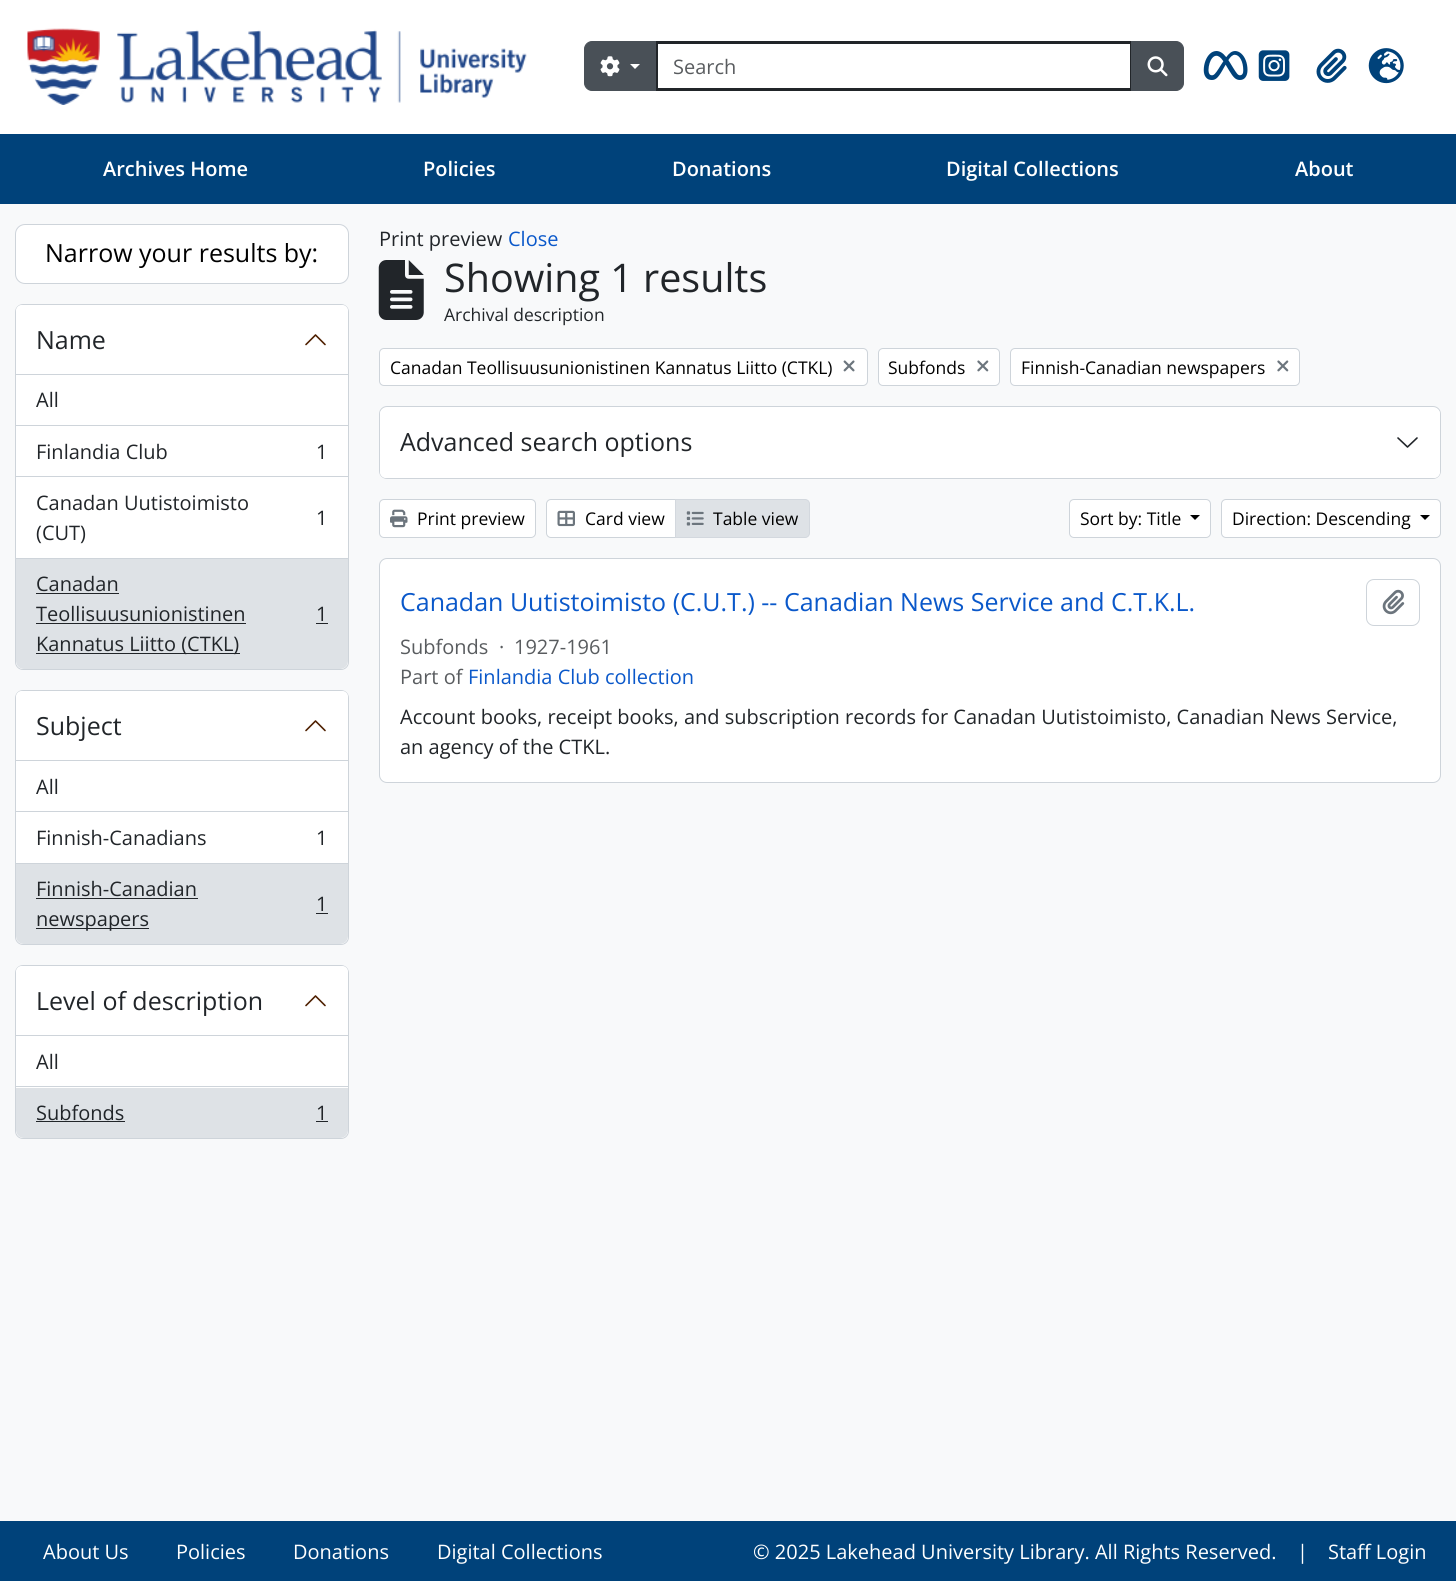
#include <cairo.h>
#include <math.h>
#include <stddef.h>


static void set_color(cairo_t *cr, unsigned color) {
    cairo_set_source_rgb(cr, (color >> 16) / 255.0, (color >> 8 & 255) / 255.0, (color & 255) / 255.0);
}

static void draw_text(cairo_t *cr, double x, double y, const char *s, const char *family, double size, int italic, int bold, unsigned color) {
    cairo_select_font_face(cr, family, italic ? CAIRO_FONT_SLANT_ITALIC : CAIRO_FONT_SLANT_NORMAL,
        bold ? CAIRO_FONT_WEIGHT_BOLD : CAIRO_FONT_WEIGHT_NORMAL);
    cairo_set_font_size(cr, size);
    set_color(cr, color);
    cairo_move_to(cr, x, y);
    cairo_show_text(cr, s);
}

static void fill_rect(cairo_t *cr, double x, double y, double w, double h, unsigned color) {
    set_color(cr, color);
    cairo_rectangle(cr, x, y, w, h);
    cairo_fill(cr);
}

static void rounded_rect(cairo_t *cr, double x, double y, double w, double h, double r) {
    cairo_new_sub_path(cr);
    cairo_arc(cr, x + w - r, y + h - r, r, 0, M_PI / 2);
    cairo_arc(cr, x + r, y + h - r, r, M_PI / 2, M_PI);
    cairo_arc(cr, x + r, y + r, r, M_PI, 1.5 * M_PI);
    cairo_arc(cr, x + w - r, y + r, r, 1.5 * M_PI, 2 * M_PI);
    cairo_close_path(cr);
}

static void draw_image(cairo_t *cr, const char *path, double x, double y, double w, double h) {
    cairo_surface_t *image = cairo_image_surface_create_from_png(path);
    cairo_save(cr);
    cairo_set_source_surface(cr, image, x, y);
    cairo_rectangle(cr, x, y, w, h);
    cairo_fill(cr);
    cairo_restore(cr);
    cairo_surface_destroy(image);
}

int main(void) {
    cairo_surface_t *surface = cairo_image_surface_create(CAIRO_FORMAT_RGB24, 1456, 1581);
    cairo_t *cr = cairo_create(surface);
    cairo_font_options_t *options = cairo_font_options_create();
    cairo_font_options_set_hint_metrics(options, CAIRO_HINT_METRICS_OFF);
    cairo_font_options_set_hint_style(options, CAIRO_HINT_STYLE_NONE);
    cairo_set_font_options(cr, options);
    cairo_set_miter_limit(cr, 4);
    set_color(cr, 0xF8F9FA);
    cairo_paint(cr);
    fill_rect(cr, 0, 0, 1456, 134, 0xFFFFFF);
    draw_image(cr, "assets/img1.png", 27, 28, 500, 77);
    cairo_rectangle(cr, 656.5, 42.5, 475, 47);
    set_color(cr, 0x212529);
    cairo_set_line_width(cr, 3);
    cairo_stroke(cr);
    set_color(cr, 0x495057);
    cairo_new_path(cr);
    cairo_move_to(cr, 592, 41.5);
    cairo_line_to(cr, 655.5, 41.5);
    cairo_line_to(cr, 655.5, 90.5);
    cairo_line_to(cr, 592, 90.5);
    cairo_curve_to(cr, 588, 90.5, 584.5, 87, 584.5, 83);
    cairo_line_to(cr, 584.5, 49);
    cairo_curve_to(cr, 584.5, 45, 588, 41.5, 592, 41.5);
    cairo_close_path(cr);
    cairo_fill_preserve(cr);
    cairo_set_line_width(cr, 1);
    cairo_stroke(cr);
    draw_image(cr, "assets/img2.png", 600, 56, 20, 21);
    set_color(cr, 0xFFFFFF);
    cairo_new_path(cr);
    cairo_move_to(cr, 630, 64);
    cairo_line_to(cr, 640, 64);
    cairo_line_to(cr, 635, 69);
    cairo_close_path(cr);
    cairo_fill(cr);
    draw_text(cr, 673, 74, "Search", "Open Sans", 20, 0, 0, 0x595C5F);
    set_color(cr, 0x495057);
    cairo_new_path(cr);
    cairo_move_to(cr, 1131.5, 41.5);
    cairo_line_to(cr, 1176, 41.5);
    cairo_curve_to(cr, 1180, 41.5, 1183.5, 45, 1183.5, 49);
    cairo_line_to(cr, 1183.5, 83);
    cairo_curve_to(cr, 1183.5, 87, 1180, 90.5, 1176, 90.5);
    cairo_line_to(cr, 1131.5, 90.5);
    cairo_close_path(cr);
    cairo_fill_preserve(cr);
    cairo_stroke(cr);
    draw_image(cr, "assets/img3.png", 1147, 56, 21, 21);
    draw_image(cr, "assets/img4.png", 1203, 51, 45, 29);
    draw_image(cr, "assets/img5.png", 1258, 50, 32, 31);
    draw_image(cr, "assets/img6.png", 1316, 48, 31, 35);
    draw_image(cr, "assets/img7.png", 1368, 48, 36, 36);
    fill_rect(cr, 0, 134, 1456, 70, 0x00427A);
    draw_text(cr, 103, 176, "Archives Home", "Open Sans SemiBold", 20, 0, 0, 0xFFFFFF);
    draw_text(cr, 423, 176, "Policies", "Open Sans SemiBold", 20, 0, 0, 0xFFFFFF);
    draw_text(cr, 672, 176, "Donations", "Open Sans SemiBold", 20, 0, 0, 0xFFFFFF);
    draw_text(cr, 946, 176, "Digital Collections", "Open Sans SemiBold", 20, 0, 0, 0xFFFFFF);
    draw_text(cr, 1295, 176, "About", "Open Sans SemiBold", 20, 0, 0, 0xFFFFFF);
    rounded_rect(cr, 15.5, 224.5, 333, 59, 9.5);
    cairo_fill_preserve(cr);
    set_color(cr, 0xCED4DA);
    cairo_stroke(cr);
    draw_text(cr, 45, 262, "Narrow your results by:", "Open Sans", 25, 0, 0, 0x000000);
    set_color(cr, 0xFFFFFF);
    rounded_rect(cr, 15.5, 304.5, 333, 365, 7.5);
    cairo_fill_preserve(cr);
    set_color(cr, 0xCED4DA);
    cairo_stroke(cr);
    set_color(cr, 0xFFFFFF);
    cairo_new_path(cr);
    cairo_move_to(cr, 22, 305);
    cairo_line_to(cr, 342, 305);
    cairo_curve_to(cr, 345.5, 305, 348, 307.5, 348, 311);
    cairo_line_to(cr, 348, 375);
    cairo_line_to(cr, 16, 375);
    cairo_line_to(cr, 16, 311);
    cairo_curve_to(cr, 16, 307.5, 18.5, 305, 22, 305);
    cairo_close_path(cr);
    cairo_fill(cr);
    fill_rect(cr, 16, 374, 332, 1, 0xCED4DA);
    draw_text(cr, 36, 349, "Name", "Open Sans", 25, 0, 0, 0x212529);
    cairo_new_path(cr);
    cairo_move_to(cr, 325, 344.5);
    cairo_line_to(cr, 315.5, 335);
    cairo_line_to(cr, 306, 344.5);
    set_color(cr, 0x4E1F00);
    cairo_set_line_width(cr, 1.6);
    cairo_set_line_cap(cr, CAIRO_LINE_CAP_ROUND);
    cairo_set_line_join(cr, CAIRO_LINE_JOIN_ROUND);
    cairo_stroke(cr);
    fill_rect(cr, 16, 425, 332, 1, 0xCED4DA);
    draw_text(cr, 36, 407, "All", "Open Sans", 20, 0, 0, 0x212529);
    fill_rect(cr, 16, 476, 332, 1, 0xCED4DA);
    draw_text(cr, 36, 459, "Finlandia Club", "Open Sans", 20, 0, 0, 0x212529);
    draw_text(cr, 316, 459, "1", "Open Sans", 20, 0, 0, 0x212529);
    fill_rect(cr, 16, 558, 332, 1, 0xCED4DA);
    draw_text(cr, 36, 510, "Canadan Uutistoimisto", "Open Sans", 20, 0, 0, 0x212529);
    draw_text(cr, 316, 525, "1", "Open Sans", 20, 0, 0, 0x212529);
    draw_text(cr, 36, 540, "(CUT)", "Open Sans", 20, 0, 0, 0x212529);
    set_color(cr, 0xDEE2E6);
    cairo_new_path(cr);
    cairo_move_to(cr, 16, 559);
    cairo_line_to(cr, 348, 559);
    cairo_line_to(cr, 348, 661);
    cairo_curve_to(cr, 348, 665.5, 344.5, 669, 340, 669);
    cairo_line_to(cr, 24, 669);
    cairo_curve_to(cr, 19.5, 669, 16, 665.5, 16, 661);
    cairo_close_path(cr);
    cairo_fill(cr);
    draw_text(cr, 36, 591, "Canadan", "Open Sans", 20, 0, 0, 0x212529);
    fill_rect(cr, 36, 593, 83, 1, 0x212529);
    draw_text(cr, 36, 621, "Teollisuusunionistinen", "Open Sans", 20, 0, 0, 0x212529);
    fill_rect(cr, 36, 623, 210, 1, 0x212529);
    draw_text(cr, 316, 621, "1", "Open Sans", 20, 0, 0, 0x212529);
    fill_rect(cr, 316, 623, 12, 1, 0x212529);
    fill_rect(cr, 36, 653, 204, 1, 0x212529);
    draw_text(cr, 36, 651, "Kannatus Liitto (CTKL)", "Open Sans", 20, 0, 0, 0x212529);
    set_color(cr, 0xFFFFFF);
    rounded_rect(cr, 15.5, 690.5, 333, 254, 7.5);
    cairo_fill_preserve(cr);
    set_color(cr, 0xCED4DA);
    cairo_set_line_width(cr, 1);
    cairo_set_line_cap(cr, CAIRO_LINE_CAP_BUTT);
    cairo_set_line_join(cr, CAIRO_LINE_JOIN_MITER);
    cairo_stroke(cr);
    set_color(cr, 0xFFFFFF);
    cairo_new_path(cr);
    cairo_move_to(cr, 22, 691);
    cairo_line_to(cr, 342, 691);
    cairo_curve_to(cr, 345.5, 691, 348, 693.5, 348, 697);
    cairo_line_to(cr, 348, 761);
    cairo_line_to(cr, 16, 761);
    cairo_line_to(cr, 16, 697);
    cairo_curve_to(cr, 16, 693.5, 18.5, 691, 22, 691);
    cairo_close_path(cr);
    cairo_fill(cr);
    fill_rect(cr, 16, 760, 332, 1, 0xCED4DA);
    draw_text(cr, 36, 735, "Subject", "Open Sans", 25, 0, 0, 0x212529);
    cairo_new_path(cr);
    cairo_move_to(cr, 325, 730.5);
    cairo_line_to(cr, 315.5, 721);
    cairo_line_to(cr, 306, 730.5);
    set_color(cr, 0x4E1F00);
    cairo_set_line_width(cr, 1.6);
    cairo_set_line_cap(cr, CAIRO_LINE_CAP_ROUND);
    cairo_set_line_join(cr, CAIRO_LINE_JOIN_ROUND);
    cairo_stroke(cr);
    fill_rect(cr, 16, 811, 332, 1, 0xCED4DA);
    draw_text(cr, 36, 794, "All", "Open Sans", 20, 0, 0, 0x212529);
    fill_rect(cr, 16, 863, 332, 1, 0xCED4DA);
    draw_text(cr, 36, 845, "Finnish-Canadians", "Open Sans", 20, 0, 0, 0x212529);
    draw_text(cr, 316, 845, "1", "Open Sans", 20, 0, 0, 0x212529);
    set_color(cr, 0xDEE2E6);
    cairo_new_path(cr);
    cairo_move_to(cr, 16, 864);
    cairo_line_to(cr, 348, 864);
    cairo_line_to(cr, 348, 936);
    cairo_curve_to(cr, 348, 940.5, 344.5, 944, 340, 944);
    cairo_line_to(cr, 24, 944);
    cairo_curve_to(cr, 19.5, 944, 16, 940.5, 16, 936);
    cairo_close_path(cr);
    cairo_fill(cr);
    draw_text(cr, 36, 896, "Finnish-Canadian", "Open Sans", 20, 0, 0, 0x212529);
    fill_rect(cr, 36, 898, 162, 1, 0x212529);
    draw_text(cr, 316, 911, "1", "Open Sans", 20, 0, 0, 0x212529);
    fill_rect(cr, 316, 913, 12, 1, 0x212529);
    fill_rect(cr, 36, 928, 113, 1, 0x212529);
    draw_text(cr, 36, 926, "newspapers", "Open Sans", 20, 0, 0, 0x212529);
    set_color(cr, 0xFFFFFF);
    rounded_rect(cr, 15.5, 965.5, 333, 173, 7.5);
    cairo_fill_preserve(cr);
    set_color(cr, 0xCED4DA);
    cairo_set_line_width(cr, 1);
    cairo_set_line_cap(cr, CAIRO_LINE_CAP_BUTT);
    cairo_set_line_join(cr, CAIRO_LINE_JOIN_MITER);
    cairo_stroke(cr);
    set_color(cr, 0xFFFFFF);
    cairo_new_path(cr);
    cairo_move_to(cr, 22, 966);
    cairo_line_to(cr, 342, 966);
    cairo_curve_to(cr, 345.5, 966, 348, 968.5, 348, 972);
    cairo_line_to(cr, 348, 1036);
    cairo_line_to(cr, 16, 1036);
    cairo_line_to(cr, 16, 972);
    cairo_curve_to(cr, 16, 968.5, 18.5, 966, 22, 966);
    cairo_close_path(cr);
    cairo_fill(cr);
    fill_rect(cr, 16, 1035, 332, 1, 0xCED4DA);
    draw_text(cr, 36, 1010, "Level of description", "Open Sans", 25, 0, 0, 0x212529);
    cairo_new_path(cr);
    cairo_move_to(cr, 325, 1005.5);
    cairo_line_to(cr, 315.5, 996);
    cairo_line_to(cr, 306, 1005.5);
    set_color(cr, 0x4E1F00);
    cairo_set_line_width(cr, 1.6);
    cairo_set_line_cap(cr, CAIRO_LINE_CAP_ROUND);
    cairo_set_line_join(cr, CAIRO_LINE_JOIN_ROUND);
    cairo_stroke(cr);
    fill_rect(cr, 16, 1086, 332, 1, 0xCED4DA);
    draw_text(cr, 36, 1069, "All", "Open Sans", 20, 0, 0, 0x212529);
    set_color(cr, 0xDEE2E6);
    cairo_new_path(cr);
    cairo_move_to(cr, 16, 1088);
    cairo_line_to(cr, 348, 1088);
    cairo_line_to(cr, 348, 1130);
    cairo_curve_to(cr, 348, 1134.5, 344.5, 1138, 340, 1138);
    cairo_line_to(cr, 24, 1138);
    cairo_curve_to(cr, 19.5, 1138, 16, 1134.5, 16, 1130);
    cairo_close_path(cr);
    cairo_fill(cr);
    draw_text(cr, 36, 1120, "Subfonds", "Open Sans", 20, 0, 0, 0x212529);
    fill_rect(cr, 36, 1121, 89, 1, 0x212529);
    draw_text(cr, 316, 1120, "1", "Open Sans", 20, 0, 0, 0x212529);
    fill_rect(cr, 316, 1121, 12, 1, 0x212529);
    draw_text(cr, 379, 246, "Print preview", "Open Sans", 20, 0, 0, 0x212529);
    draw_text(cr, 508, 246, "Close", "Open Sans", 20, 0, 0, 0x0A58CA);
    draw_image(cr, "assets/img8.png", 378, 260, 46, 60);
    draw_text(cr, 444, 292, "Showing 1 results", "Open Sans", 39.5, 0, 0, 0x212529);
    draw_text(cr, 444, 321, "Archival description", "Open Sans", 17.5, 0, 0, 0x212529);
    set_color(cr, 0xFFFFFF);
    rounded_rect(cr, 379.5, 348.5, 488, 37, 4.5);
    cairo_fill_preserve(cr);
    set_color(cr, 0xCED4DA);
    cairo_set_line_width(cr, 1);
    cairo_set_line_cap(cr, CAIRO_LINE_CAP_BUTT);
    cairo_set_line_join(cr, CAIRO_LINE_JOIN_MITER);
    cairo_stroke(cr);
    draw_text(cr, 390, 374, "Canadan Teollisuusunionistinen Kannatus Liitto (CTKL)", "Open Sans", 17.5, 0, 0, 0x000000);
    draw_image(cr, "assets/img9.png", 843, 360, 12, 12);
    set_color(cr, 0xFFFFFF);
    rounded_rect(cr, 878.5, 348.5, 121, 37, 4.5);
    cairo_fill_preserve(cr);
    set_color(cr, 0xCED4DA);
    cairo_stroke(cr);
    draw_text(cr, 888, 374, "Subfonds", "Open Sans", 17.5, 0, 0, 0x000000);
    draw_image(cr, "assets/img10.png", 977, 360, 12, 12);
    set_color(cr, 0xFFFFFF);
    rounded_rect(cr, 1010.5, 348.5, 289, 37, 4.5);
    cairo_fill_preserve(cr);
    set_color(cr, 0xCED4DA);
    cairo_stroke(cr);
    draw_text(cr, 1021, 374, "Finnish-Canadian newspapers", "Open Sans", 17.5, 0, 0, 0x000000);
    draw_image(cr, "assets/img10.png", 1277, 360, 12, 12);
    set_color(cr, 0xFFFFFF);
    rounded_rect(cr, 379.5, 406.5, 1061, 72, 7.5);
    cairo_fill_preserve(cr);
    set_color(cr, 0xCED4DA);
    cairo_stroke(cr);
    set_color(cr, 0xFFFFFF);
    rounded_rect(cr, 380, 408, 1060, 70, 6);
    cairo_fill(cr);
    draw_text(cr, 400, 451, "Advanced search options", "Open Sans", 25, 0, 0, 0x212529);
    cairo_new_path(cr);
    cairo_move_to(cr, 1398, 438);
    cairo_line_to(cr, 1407.5, 447);
    cairo_line_to(cr, 1417, 438);
    cairo_set_line_width(cr, 1.6);
    cairo_set_line_cap(cr, CAIRO_LINE_CAP_ROUND);
    cairo_set_line_join(cr, CAIRO_LINE_JOIN_ROUND);
    cairo_stroke(cr);
    set_color(cr, 0xFFFFFF);
    rounded_rect(cr, 379.5, 499.5, 156, 38, 4.5);
    cairo_fill_preserve(cr);
    set_color(cr, 0xCED4DA);
    cairo_set_line_width(cr, 1);
    cairo_set_line_cap(cr, CAIRO_LINE_CAP_BUTT);
    cairo_set_line_join(cr, CAIRO_LINE_JOIN_MITER);
    cairo_stroke(cr);
    draw_image(cr, "assets/img11.png", 390, 509, 18, 19);
    draw_text(cr, 417, 525, "Print preview", "Open Sans", 17.5, 0, 0, 0x000000);
    set_color(cr, 0xFFFFFF);
    cairo_new_path(cr);
    cairo_move_to(cr, 551, 499.5);
    cairo_line_to(cr, 675.5, 499.5);
    cairo_line_to(cr, 675.5, 537.5);
    cairo_line_to(cr, 551, 537.5);
    cairo_curve_to(cr, 548.5, 537.5, 546.5, 535.5, 546.5, 533);
    cairo_line_to(cr, 546.5, 504);
    cairo_curve_to(cr, 546.5, 501.5, 548.5, 499.5, 551, 499.5);
    cairo_close_path(cr);
    cairo_fill_preserve(cr);
    set_color(cr, 0xCED4DA);
    cairo_stroke(cr);
    draw_image(cr, "assets/img12.png", 557, 510, 18, 17);
    draw_text(cr, 585, 525, "Card view", "Open Sans", 17.5, 0, 0, 0x000000);
    set_color(cr, 0xDEE2E6);
    cairo_new_path(cr);
    cairo_move_to(cr, 675.5, 499.5);
    cairo_line_to(cr, 805, 499.5);
    cairo_curve_to(cr, 807.5, 499.5, 809.5, 501.5, 809.5, 504);
    cairo_line_to(cr, 809.5, 533);
    cairo_curve_to(cr, 809.5, 535.5, 807.5, 537.5, 805, 537.5);
    cairo_line_to(cr, 675.5, 537.5);
    cairo_close_path(cr);
    cairo_fill_preserve(cr);
    set_color(cr, 0xD3D8DE);
    cairo_stroke(cr);
    draw_image(cr, "assets/img13.png", 686, 511, 18, 15);
    draw_text(cr, 713, 525, "Table view", "Open Sans", 17.5, 0, 0, 0x000000);
    set_color(cr, 0xFFFFFF);
    rounded_rect(cr, 1069.5, 499.5, 141, 38, 4.5);
    cairo_fill_preserve(cr);
    set_color(cr, 0xCED4DA);
    cairo_stroke(cr);
    draw_text(cr, 1080, 525, "Sort by: Title", "Open Sans", 17.5, 0, 0, 0x000000);
    cairo_new_path(cr);
    cairo_move_to(cr, 1190, 515);
    cairo_line_to(cr, 1200, 515);
    cairo_line_to(cr, 1195, 520);
    cairo_close_path(cr);
    cairo_fill(cr);
    set_color(cr, 0xFFFFFF);
    rounded_rect(cr, 1221.5, 499.5, 219, 38, 4.5);
    cairo_fill_preserve(cr);
    set_color(cr, 0xCED4DA);
    cairo_stroke(cr);
    draw_text(cr, 1232, 525, "Direction: Descending", "Open Sans", 17.5, 0, 0, 0x000000);
    cairo_new_path(cr);
    cairo_move_to(cr, 1420, 515);
    cairo_line_to(cr, 1430, 515);
    cairo_line_to(cr, 1425, 520);
    cairo_close_path(cr);
    cairo_fill(cr);
    set_color(cr, 0xFFFFFF);
    rounded_rect(cr, 379.5, 558.5, 1061, 224, 7.5);
    cairo_fill_preserve(cr);
    set_color(cr, 0xCED4DA);
    cairo_stroke(cr);
    draw_text(cr, 400, 611, "Canadan Uutistoimisto (C.U.T.) -- Canadian News Service and C.T.K.L.", "Open Sans", 25, 0, 0, 0x0A58CA);
    rounded_rect(cr, 1366.5, 579.5, 53, 46, 7.5);
    set_color(cr, 0xCED4DA);
    cairo_stroke(cr);
    draw_image(cr, "assets/img14.png", 1382, 589, 23, 26);
    draw_text(cr, 400, 654, "Subfonds", "Open Sans", 20, 0, 0, 0x595C5F);
    draw_text(cr, 499, 654, "·", "Open Sans", 20, 0, 0, 0x595C5F);
    draw_text(cr, 514, 654, "1927-1961", "Open Sans", 20, 0, 0, 0x595C5F);
    draw_text(cr, 400, 684, "Part of", "Open Sans", 20, 0, 0, 0x595C5F);
    draw_text(cr, 468, 684, "Finlandia Club collection", "Open Sans", 20, 0, 0, 0x0A58CA);
    draw_text(cr, 400, 724, "Account books, receipt books, and subscription records for Canadan Uutistoimisto, Canadian News Service,", "Open Sans", 20, 0, 0, 0x212529);
    draw_text(cr, 400, 754, "an agency of the CTKL.", "Open Sans", 20, 0, 0, 0x212529);
    fill_rect(cr, 0, 1521, 1456, 60, 0x00427A);
    draw_text(cr, 43, 1559, "About Us", "Open Sans", 20, 0, 0, 0xFFFFFF);
    draw_text(cr, 176, 1559, "Policies", "Open Sans", 20, 0, 0, 0xFFFFFF);
    draw_text(cr, 293, 1559, "Donations", "Open Sans", 20, 0, 0, 0xFFFFFF);
    draw_text(cr, 437, 1559, "Digital Collections", "Open Sans", 20, 0, 0, 0xFFFFFF);
    draw_text(cr, 753, 1559, "© 2025 Lakehead University Library. All Rights Reserved.", "Open Sans", 20, 0, 0, 0xFFFFFF);
    draw_text(cr, 1297, 1559, "|", "Open Sans", 20, 0, 0, 0xFFFFFF);
    draw_text(cr, 1328, 1559, "Staff Login", "Open Sans", 20, 0, 0, 0xFFFFFF);
    cairo_surface_write_to_png(surface, "output.png");
    cairo_font_options_destroy(options);
    cairo_destroy(cr);
    cairo_surface_destroy(surface);
    return 0;
}
